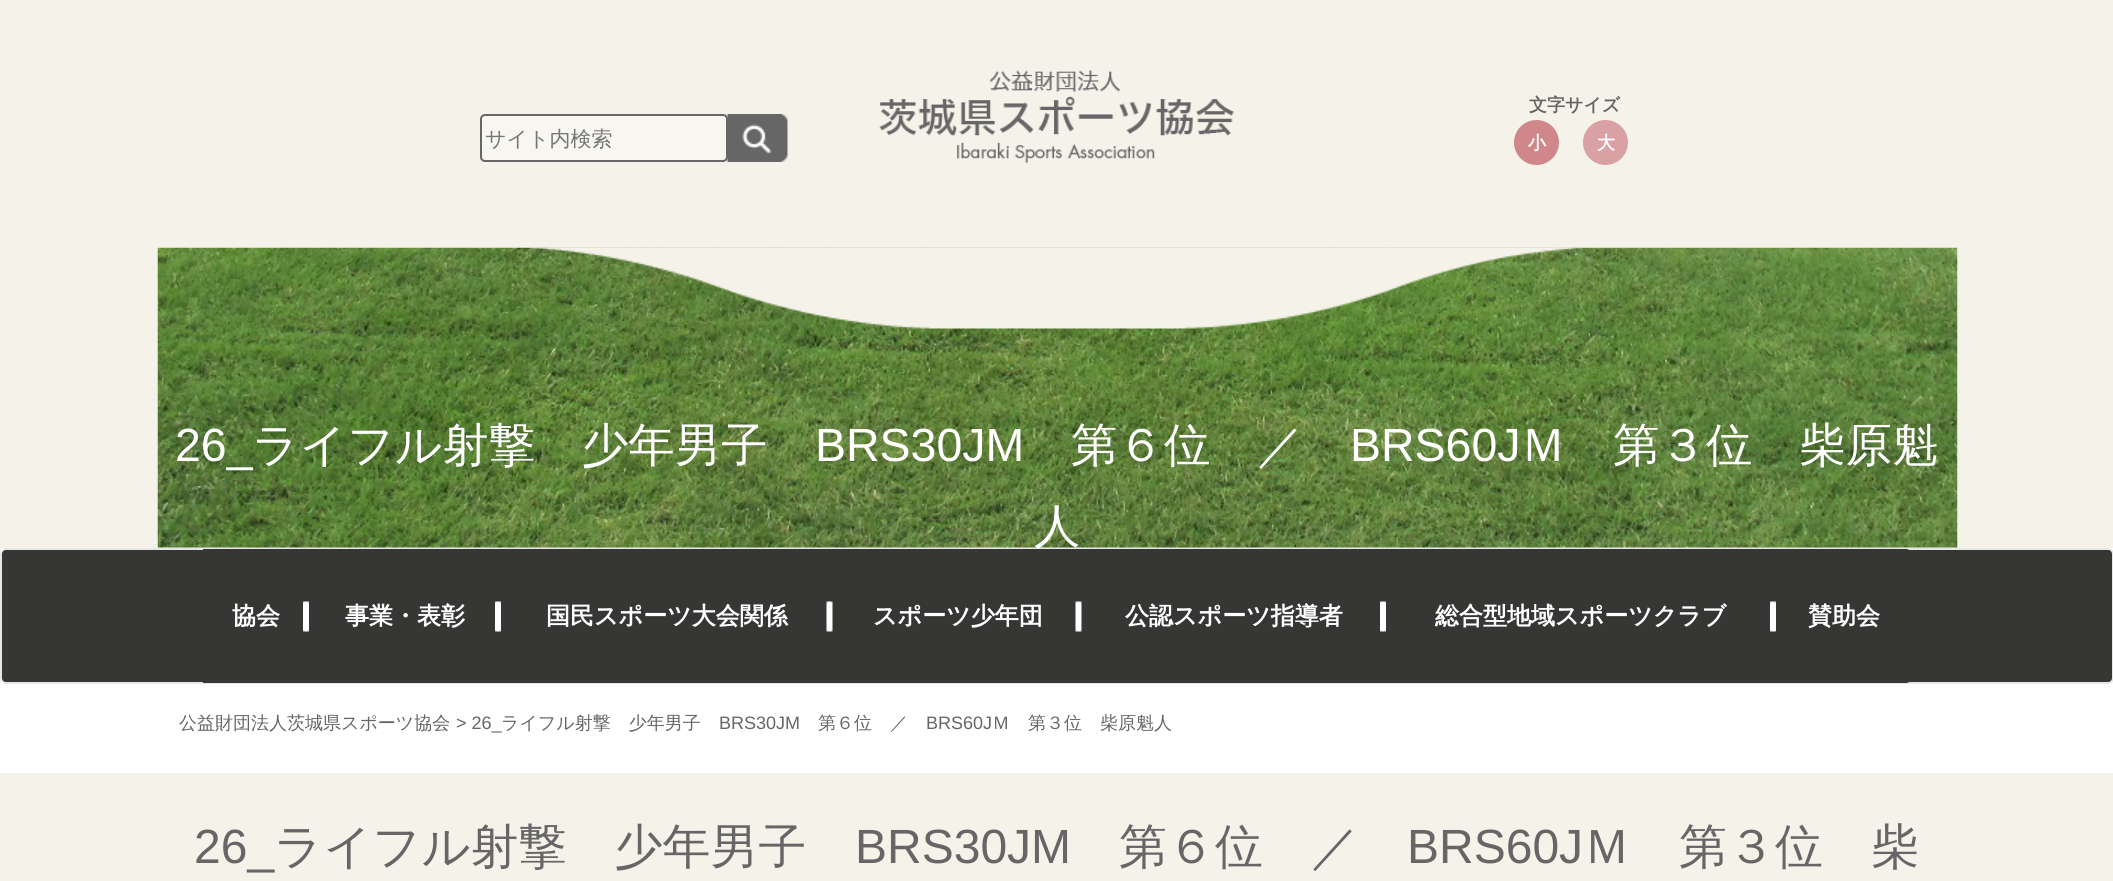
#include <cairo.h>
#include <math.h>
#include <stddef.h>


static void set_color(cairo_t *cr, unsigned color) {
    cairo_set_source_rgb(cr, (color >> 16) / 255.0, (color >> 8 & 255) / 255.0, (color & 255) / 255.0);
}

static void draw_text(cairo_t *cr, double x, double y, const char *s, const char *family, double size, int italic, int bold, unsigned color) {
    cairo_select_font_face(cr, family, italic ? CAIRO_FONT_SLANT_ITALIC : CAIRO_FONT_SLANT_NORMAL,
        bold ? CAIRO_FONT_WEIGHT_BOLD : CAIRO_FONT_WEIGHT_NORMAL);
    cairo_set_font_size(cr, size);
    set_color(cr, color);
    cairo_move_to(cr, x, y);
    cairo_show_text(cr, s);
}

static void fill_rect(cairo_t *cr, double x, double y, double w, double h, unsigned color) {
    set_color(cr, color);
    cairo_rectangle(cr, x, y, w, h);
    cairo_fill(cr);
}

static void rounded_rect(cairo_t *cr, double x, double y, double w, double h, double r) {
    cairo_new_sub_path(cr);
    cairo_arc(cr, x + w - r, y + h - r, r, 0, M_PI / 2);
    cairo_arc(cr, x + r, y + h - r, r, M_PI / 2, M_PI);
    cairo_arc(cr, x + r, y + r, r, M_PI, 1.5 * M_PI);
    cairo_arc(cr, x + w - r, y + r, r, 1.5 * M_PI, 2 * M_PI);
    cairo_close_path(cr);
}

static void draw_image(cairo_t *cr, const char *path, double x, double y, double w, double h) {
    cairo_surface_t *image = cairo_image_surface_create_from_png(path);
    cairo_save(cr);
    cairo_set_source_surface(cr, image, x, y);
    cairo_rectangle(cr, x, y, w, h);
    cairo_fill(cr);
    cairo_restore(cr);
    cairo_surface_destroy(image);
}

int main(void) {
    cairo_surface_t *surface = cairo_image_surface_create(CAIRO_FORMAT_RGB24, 2113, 881);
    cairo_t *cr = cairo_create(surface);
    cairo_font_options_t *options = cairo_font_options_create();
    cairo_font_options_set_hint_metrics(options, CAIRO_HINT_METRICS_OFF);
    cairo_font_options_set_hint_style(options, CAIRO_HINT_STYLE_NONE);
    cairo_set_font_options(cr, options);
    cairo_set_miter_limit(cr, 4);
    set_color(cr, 0xFFFFFF);
    cairo_paint(cr);
    fill_rect(cr, 0, 0, 2113, 548, 0xF5F2E9);
    draw_image(cr, "assets/img4.png", 157, 247, 1801, 301);
    draw_image(cr, "assets/img1.png", 532, 247, 1051, 82);
    set_color(cr, 0xF8F6F0);
    rounded_rect(cr, 481, 115, 246, 46, 4);
    cairo_fill_preserve(cr);
    set_color(cr, 0x666666);
    cairo_stroke(cr);
    draw_text(cr, 485, 146, "サイト内検索", "WenQuanYi Zen Hei Medium", 21, 0, 0, 0x757575);
    draw_image(cr, "assets/img2.png", 727, 114, 61, 48);
    draw_image(cr, "assets/img3.png", 879, 70, 355, 93);
    draw_text(cr, 1529, 111, "文字サイズ", "WenQuanYi Zen Hei", 18, 0, 1, 0x666666);
    set_color(cr, 0xCF878A);
    cairo_new_path(cr);
    cairo_arc(cr, 1536.5, 142.5, 22.5, 0, 2 * M_PI);
    cairo_fill(cr);
    draw_text(cr, 1528, 149, "小", "WenQuanYi Zen Hei", 18, 0, 1, 0xFFFFFF);
    set_color(cr, 0xD9A1A4);
    cairo_new_path(cr);
    cairo_arc(cr, 1605.5, 142.5, 22.5, 0, 2 * M_PI);
    cairo_fill(cr);
    draw_text(cr, 1597, 149, "大", "WenQuanYi Zen Hei", 18, 0, 1, 0xFFFFFF);
    draw_text(cr, 175, 461, "26_", "Liberation Sans", 46.5, 0, 0, 0xFFFFFF);
    draw_text(cr, 252, 461, "ライフル射撃　少年男子", "WenQuanYi Zen Hei Medium", 46.5, 0, 0, 0xFFFFFF);
    draw_text(cr, 815, 461, "BRS30JM", "Liberation Sans", 46.5, 0, 0, 0xFFFFFF);
    draw_text(cr, 1071, 461, "第６位　／", "WenQuanYi Zen Hei Medium", 46.5, 0, 0, 0xFFFFFF);
    draw_text(cr, 1350, 461, "BRS60J", "Liberation Sans", 46.5, 0, 0, 0xFFFFFF);
    draw_text(cr, 1520, 461, "Ｍ　第３位　柴原魁", "WenQuanYi Zen Hei Medium", 46.5, 0, 0, 0xFFFFFF);
    cairo_save(cr);
    cairo_rectangle(cr, 158, 248, 1800, 300);
    cairo_clip(cr);
    draw_text(cr, 1034, 542, "人", "WenQuanYi Zen Hei Medium", 46.5, 0, 0, 0xFFFFFF);
    cairo_restore(cr);
    set_color(cr, 0x363735);
    rounded_rect(cr, 1, 549, 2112, 134, 5);
    cairo_fill_preserve(cr);
    set_color(cr, 0xE7E7E7);
    cairo_stroke(cr);
    fill_rect(cr, 203, 549, 1573, 134, 0x363735);
    draw_image(cr, "assets/img5.png", 303, 601, 6, 31);
    draw_text(cr, 232, 624, "協会", "WenQuanYi Zen Hei", 24, 0, 1, 0xFFFFFF);
    draw_image(cr, "assets/img5.png", 495, 601, 6, 31);
    draw_text(cr, 345, 624, "事業・表彰", "WenQuanYi Zen Hei", 24, 0, 1, 0xFFFFFF);
    draw_image(cr, "assets/img6.png", 826, 601, 7, 31);
    draw_text(cr, 546, 624, "国民スポーツ大会関係", "WenQuanYi Zen Hei", 24, 0, 1, 0xFFFFFF);
    draw_image(cr, "assets/img6.png", 1075, 601, 7, 31);
    draw_text(cr, 873, 624, "スポーツ少年団", "WenQuanYi Zen Hei", 24, 0, 1, 0xFFFFFF);
    draw_image(cr, "assets/img7.png", 1380, 601, 6, 31);
    draw_text(cr, 1125, 624, "公認スポーツ指導者", "WenQuanYi Zen Hei", 24, 0, 1, 0xFFFFFF);
    draw_image(cr, "assets/img7.png", 1770, 601, 6, 31);
    draw_text(cr, 1435, 624, "総合型地域スポーツクラブ", "WenQuanYi Zen Hei", 24, 0, 1, 0xFFFFFF);
    set_color(cr, 0x363735);
    cairo_new_path(cr);
    cairo_move_to(cr, 1776, 549);
    cairo_line_to(cr, 1906, 549);
    cairo_curve_to(cr, 1909, 549, 1911, 551, 1911, 554);
    cairo_line_to(cr, 1911, 678);
    cairo_curve_to(cr, 1911, 681, 1909, 683, 1906, 683);
    cairo_line_to(cr, 1776, 683);
    cairo_close_path(cr);
    cairo_fill(cr);
    draw_text(cr, 1808, 624, "賛助会", "WenQuanYi Zen Hei", 24, 0, 1, 0xFFFFFF);
    draw_text(cr, 179, 729, "公益財団法人茨城県スポーツ協会", "WenQuanYi Zen Hei Medium", 18, 0, 0, 0x666666);
    draw_text(cr, 456, 729, "> 26_", "Liberation Sans", 18, 0, 0, 0x666666);
    draw_text(cr, 501, 729, "ライフル射撃　少年男子", "WenQuanYi Zen Hei Medium", 18, 0, 0, 0x666666);
    draw_text(cr, 719, 729, "BRS30JM", "Liberation Sans", 18, 0, 0, 0x666666);
    draw_text(cr, 818, 729, "第６位　／", "WenQuanYi Zen Hei Medium", 18, 0, 0, 0x666666);
    draw_text(cr, 926, 729, "BRS60J", "Liberation Sans", 18, 0, 0, 0x666666);
    draw_text(cr, 992, 729, "Ｍ　第３位　柴原魁人", "WenQuanYi Zen Hei Medium", 18, 0, 0, 0x666666);
    fill_rect(cr, 0, 773, 2113, 108, 0xF5F2E9);
    draw_text(cr, 194, 863, "26_", "Liberation Sans", 48, 0, 0, 0x666666);
    draw_text(cr, 274, 863, "ライフル射撃　少年男子", "WenQuanYi Zen Hei Medium", 48, 0, 0, 0x666666);
    draw_text(cr, 855, 863, "BRS30JM", "Liberation Sans", 48, 0, 0, 0x666666);
    draw_text(cr, 1119, 863, "第６位　／", "WenQuanYi Zen Hei Medium", 48, 0, 0, 0x666666);
    draw_text(cr, 1407, 863, "BRS60J", "Liberation Sans", 48, 0, 0, 0x666666);
    draw_text(cr, 1583, 863, "Ｍ　第３位　柴", "WenQuanYi Zen Hei Medium", 48, 0, 0, 0x666666);
    cairo_surface_write_to_png(surface, "output.png");
    cairo_font_options_destroy(options);
    cairo_destroy(cr);
    cairo_surface_destroy(surface);
    return 0;
}
